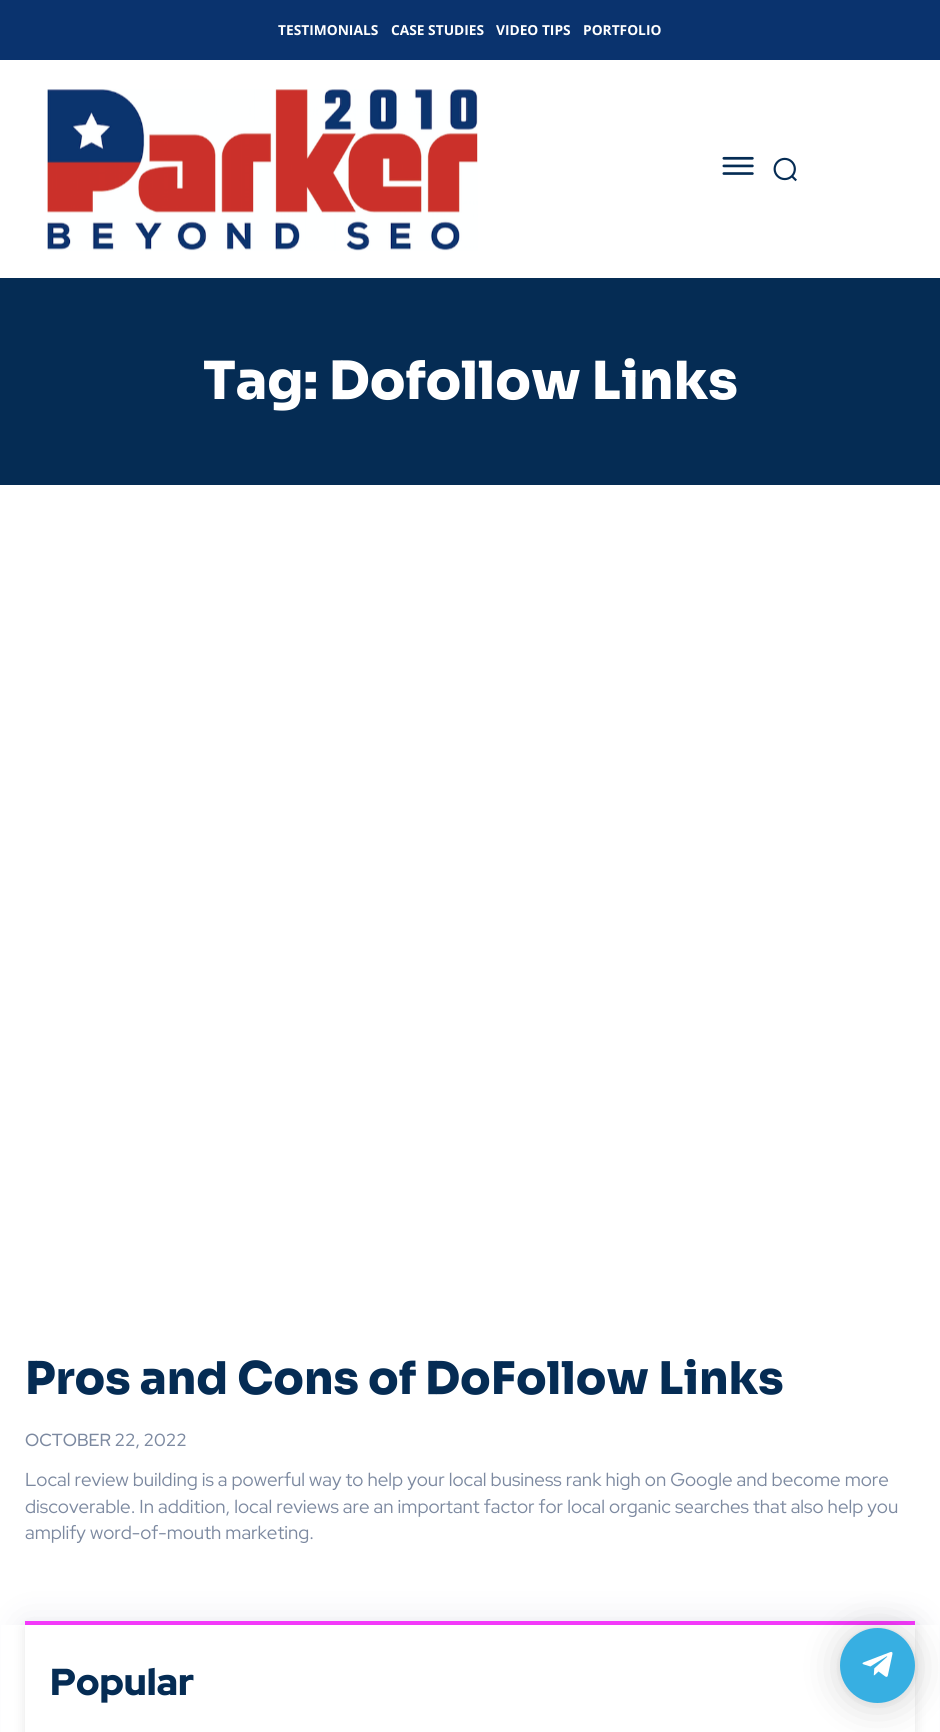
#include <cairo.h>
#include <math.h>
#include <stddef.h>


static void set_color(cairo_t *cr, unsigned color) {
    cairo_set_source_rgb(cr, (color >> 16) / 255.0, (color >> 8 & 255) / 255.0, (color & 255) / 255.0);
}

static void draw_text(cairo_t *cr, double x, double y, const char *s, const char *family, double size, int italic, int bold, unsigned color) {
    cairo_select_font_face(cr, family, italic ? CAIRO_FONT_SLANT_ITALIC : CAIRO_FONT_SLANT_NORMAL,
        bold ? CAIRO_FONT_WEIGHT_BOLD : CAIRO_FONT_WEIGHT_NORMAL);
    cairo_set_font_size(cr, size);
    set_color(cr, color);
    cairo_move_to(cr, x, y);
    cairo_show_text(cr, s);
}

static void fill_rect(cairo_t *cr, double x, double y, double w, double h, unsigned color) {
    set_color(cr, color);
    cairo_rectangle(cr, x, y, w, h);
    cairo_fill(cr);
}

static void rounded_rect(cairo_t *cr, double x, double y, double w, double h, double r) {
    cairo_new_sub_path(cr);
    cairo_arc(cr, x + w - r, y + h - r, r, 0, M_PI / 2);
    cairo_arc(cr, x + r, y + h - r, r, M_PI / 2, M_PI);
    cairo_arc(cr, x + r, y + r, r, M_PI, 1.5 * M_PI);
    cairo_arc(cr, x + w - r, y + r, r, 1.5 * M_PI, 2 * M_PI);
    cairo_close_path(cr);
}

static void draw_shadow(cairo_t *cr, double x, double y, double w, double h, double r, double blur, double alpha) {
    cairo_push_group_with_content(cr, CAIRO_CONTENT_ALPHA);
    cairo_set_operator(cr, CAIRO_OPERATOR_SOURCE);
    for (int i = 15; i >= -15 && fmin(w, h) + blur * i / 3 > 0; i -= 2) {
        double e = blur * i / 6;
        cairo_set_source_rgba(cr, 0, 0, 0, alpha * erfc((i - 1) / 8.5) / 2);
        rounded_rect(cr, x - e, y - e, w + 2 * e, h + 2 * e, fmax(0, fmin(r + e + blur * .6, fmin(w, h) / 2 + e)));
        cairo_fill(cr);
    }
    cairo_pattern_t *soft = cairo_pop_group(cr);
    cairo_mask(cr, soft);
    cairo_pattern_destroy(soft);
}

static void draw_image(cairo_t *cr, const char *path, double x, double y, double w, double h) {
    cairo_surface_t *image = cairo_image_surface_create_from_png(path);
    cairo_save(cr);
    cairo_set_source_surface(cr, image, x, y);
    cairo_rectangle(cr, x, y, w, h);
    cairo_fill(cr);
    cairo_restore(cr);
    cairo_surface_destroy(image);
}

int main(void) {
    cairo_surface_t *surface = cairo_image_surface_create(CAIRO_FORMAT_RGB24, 940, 1732);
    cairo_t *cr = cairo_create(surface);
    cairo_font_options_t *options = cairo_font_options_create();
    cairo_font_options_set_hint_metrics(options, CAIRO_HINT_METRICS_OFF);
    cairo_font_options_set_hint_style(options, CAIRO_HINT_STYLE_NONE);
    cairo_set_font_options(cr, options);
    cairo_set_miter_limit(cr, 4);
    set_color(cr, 0xFFFFFF);
    cairo_paint(cr);
    fill_rect(cr, 0, 0, 940, 60, 0x0A336E);
    draw_text(cr, 278, 35, "TESTIMONIALS", "Open Sans", 13.75, 0, 1, 0xFFFFFF);
    draw_text(cr, 391, 35, "CASE STUDIES", "Open Sans", 13.75, 0, 1, 0xFFFFFF);
    draw_text(cr, 496, 35, "VIDEO TIPS", "Open Sans", 13.75, 0, 1, 0xFFFFFF);
    draw_text(cr, 583, 35, "PORTFOLIO", "Open Sans", 13.75, 0, 1, 0xFFFFFF);
    draw_image(cr, "assets/img1.png", 47, 89, 431, 162);
    draw_image(cr, "assets/img2.png", 722, 156, 32, 19);
    draw_image(cr, "assets/img3.png", 773, 157, 24, 25);
    fill_rect(cr, 0, 278, 940, 207, 0x052C54);
    draw_text(cr, 203, 399, "Tag: Dofollow Links", "Sora ExtraBold", 52.5, 0, 0, 0xFFFFFF);
    draw_text(cr, 25, 1394, "Pros and Cons of DoFollow Links", "Sora ExtraBold", 45, 0, 0, 0x052C54);
    draw_text(cr, 25, 1446, "OCTOBER 22, 2022", "Red Hat Display Medium", 17.5, 0, 0, 0x7C89A0);
    draw_text(cr, 25, 1486, "Local review building is a powerful way to help your local business rank high on Google and become more", "Red Hat Display", 18.75, 0, 0, 0x7C89A0);
    draw_text(cr, 25, 1513, "discoverable. In addition, local reviews are an important factor for local organic searches that also help you", "Red Hat Display", 18.75, 0, 0, 0x7C89A0);
    draw_text(cr, 25, 1539, "amplify word-of-mouth marketing.", "Red Hat Display", 18.75, 0, 0, 0x7C89A0);
    set_color(cr, 0x020247);
    draw_shadow(cr, 25, 1626, 890, 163, 0, 19, 0.1);
    fill_rect(cr, 25, 1621, 890, 4, 0xF83AFF);
    fill_rect(cr, 1, 1625, 938, 107, 0xFFFFFF);
    cairo_save(cr);
    cairo_set_fill_rule(cr, CAIRO_FILL_RULE_EVEN_ODD);
    cairo_new_path(cr);
    cairo_move_to(cr, 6, 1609);
    cairo_line_to(cr, 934, 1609);
    cairo_line_to(cr, 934, 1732);
    cairo_line_to(cr, 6, 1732);
    cairo_close_path(cr);
    cairo_move_to(cr, 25, 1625);
    cairo_line_to(cr, 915, 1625);
    cairo_line_to(cr, 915, 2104);
    cairo_line_to(cr, 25, 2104);
    cairo_close_path(cr);
    cairo_clip(cr);
    set_color(cr, 0x000000);
    draw_shadow(cr, 25, 1628, 890, 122, 0, 6, 0.1);
    cairo_restore(cr);
    draw_text(cr, 50, 1695, "Popular", "Red Hat Display Black", 37.5, 0, 0, 0x052C54);
    set_color(cr, 0x000000);
    draw_shadow(cr, 840, 1630, 75, 75, 37.5, 20, 0.16);
    draw_shadow(cr, 840, 1629, 75, 75, 37.5, 4, 0.06);
    set_color(cr, 0x37AFE2);
    cairo_arc(cr, 877.5, 1665.5, 37.5, 0, 2 * M_PI);
    cairo_fill(cr);
    draw_image(cr, "assets/img4.png", 862, 1651, 31, 26);
    cairo_surface_write_to_png(surface, "output.png");
    cairo_font_options_destroy(options);
    cairo_destroy(cr);
    cairo_surface_destroy(surface);
    return 0;
}
